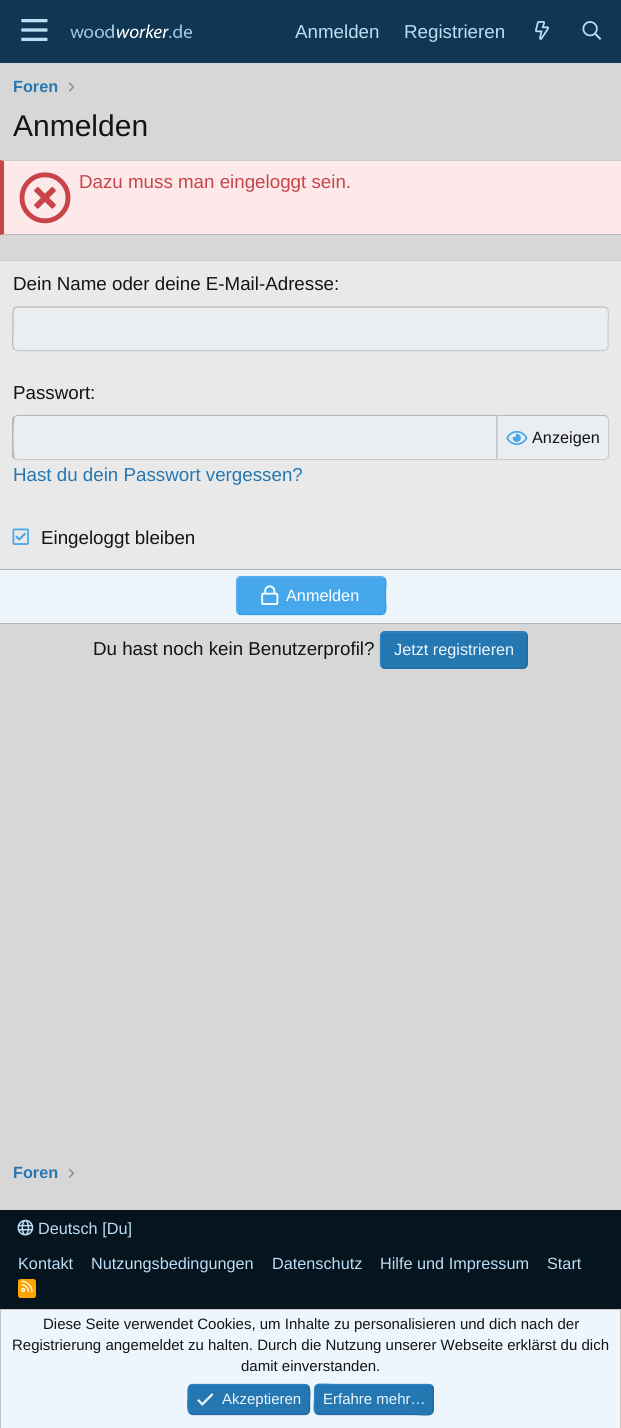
#include <cairo.h>
#include <math.h>
#include <stddef.h>


static void set_color(cairo_t *cr, unsigned color) {
    cairo_set_source_rgb(cr, (color >> 16) / 255.0, (color >> 8 & 255) / 255.0, (color & 255) / 255.0);
}

static void draw_text(cairo_t *cr, double x, double y, const char *s, const char *family, double size, int italic, int bold, unsigned color) {
    cairo_select_font_face(cr, family, italic ? CAIRO_FONT_SLANT_ITALIC : CAIRO_FONT_SLANT_NORMAL,
        bold ? CAIRO_FONT_WEIGHT_BOLD : CAIRO_FONT_WEIGHT_NORMAL);
    cairo_set_font_size(cr, size);
    set_color(cr, color);
    cairo_move_to(cr, x, y);
    cairo_show_text(cr, s);
}

static void fill_rect(cairo_t *cr, double x, double y, double w, double h, unsigned color) {
    set_color(cr, color);
    cairo_rectangle(cr, x, y, w, h);
    cairo_fill(cr);
}

static void rounded_rect(cairo_t *cr, double x, double y, double w, double h, double r) {
    cairo_new_sub_path(cr);
    cairo_arc(cr, x + w - r, y + h - r, r, 0, M_PI / 2);
    cairo_arc(cr, x + r, y + h - r, r, M_PI / 2, M_PI);
    cairo_arc(cr, x + r, y + r, r, M_PI, 1.5 * M_PI);
    cairo_arc(cr, x + w - r, y + r, r, 1.5 * M_PI, 2 * M_PI);
    cairo_close_path(cr);
}

static void draw_image(cairo_t *cr, const char *path, double x, double y, double w, double h) {
    cairo_surface_t *image = cairo_image_surface_create_from_png(path);
    cairo_save(cr);
    cairo_set_source_surface(cr, image, x, y);
    cairo_rectangle(cr, x, y, w, h);
    cairo_fill(cr);
    cairo_restore(cr);
    cairo_surface_destroy(image);
}

int main(void) {
    cairo_surface_t *surface = cairo_image_surface_create(CAIRO_FORMAT_RGB24, 621, 1428);
    cairo_t *cr = cairo_create(surface);
    cairo_font_options_t *options = cairo_font_options_create();
    cairo_font_options_set_hint_metrics(options, CAIRO_HINT_METRICS_OFF);
    cairo_font_options_set_hint_style(options, CAIRO_HINT_STYLE_NONE);
    cairo_set_font_options(cr, options);
    cairo_set_miter_limit(cr, 4);
    set_color(cr, 0xD7D7D7);
    cairo_paint(cr);
    fill_rect(cr, 0, 0, 621, 63, 0x0F3652);
    draw_image(cr, "assets/img1.png", 21, 19, 27, 22);
    draw_image(cr, "assets/img2.png", 70, 24, 123, 15);
    draw_text(cr, 295, 38, "Anmelden", "Liberation Sans", 18.75, 0, 0, 0xBCDEF5);
    draw_text(cr, 404, 38, "Registrieren", "Liberation Sans", 18.75, 0, 0, 0xBCDEF5);
    draw_image(cr, "assets/img3.png", 535, 21, 15, 19);
    draw_image(cr, "assets/img4.png", 582, 21, 20, 19);
    draw_text(cr, 13, 92, "Foren", "Liberation Sans", 16.25, 0, 1, 0x2577B1);
    draw_image(cr, "assets/img5.png", 68, 82, 7, 10);
    draw_text(cr, 13, 136, "Anmelden", "Liberation Sans", 30, 0, 0, 0x141414);
    fill_rect(cr, 0, 160, 621, 75, 0xFDE9E9);
    set_color(cr, 0xCACACA);
    cairo_new_path(cr);
    cairo_move_to(cr, 0, 160);
    cairo_line_to(cr, 621, 160);
    cairo_line_to(cr, 621, 161);
    cairo_line_to(cr, 4, 161);
    cairo_close_path(cr);
    cairo_fill(cr);
    set_color(cr, 0xB6B6B6);
    cairo_new_path(cr);
    cairo_move_to(cr, 621, 235);
    cairo_line_to(cr, 0, 235);
    cairo_line_to(cr, 4, 234);
    cairo_line_to(cr, 621, 234);
    cairo_close_path(cr);
    cairo_fill(cr);
    set_color(cr, 0xC84448);
    cairo_new_path(cr);
    cairo_move_to(cr, 0, 235);
    cairo_line_to(cr, 0, 160);
    cairo_line_to(cr, 4, 161);
    cairo_line_to(cr, 4, 234);
    cairo_close_path(cr);
    cairo_fill(cr);
    draw_image(cr, "assets/img6.png", 19, 172, 52, 52);
    draw_text(cr, 79, 188, "Dazu muss man eingeloggt sein.", "Liberation Sans", 18.75, 0, 0, 0xC84448);
    fill_rect(cr, 0, 261, 621, 308, 0xE9E9E9);
    fill_rect(cr, 0, 260, 621, 1, 0xCACACA);
    fill_rect(cr, 0, 623, 621, 1, 0xB6B6B6);
    draw_text(cr, 13, 290, "Dein Name oder deine E-Mail-Adresse:", "Liberation Sans", 18.75, 0, 0, 0x141414);
    set_color(cr, 0xEBEEF1);
    rounded_rect(cr, 13, 306, 596, 45, 5);
    cairo_fill(cr);
    cairo_new_path(cr);
    cairo_move_to(cr, 607, 308);
    cairo_curve_to(cr, 609.5, 311, 608, 320, 608, 323);
    cairo_line_to(cr, 608, 340.5);
    cairo_curve_to(cr, 608, 343.5, 609.5, 349.5, 604.5, 350.5);
    cairo_line_to(cr, 17.5, 350.5);
    cairo_line_to(cr, 14.5, 349.5);
    set_color(cr, 0xCACACA);
    cairo_set_line_width(cr, 1.2);
    cairo_stroke(cr);
    cairo_new_path(cr);
    cairo_move_to(cr, 14.5, 349.5);
    cairo_curve_to(cr, 11.5, 346.5, 13, 337.5, 13, 334.5);
    cairo_line_to(cr, 13, 317);
    cairo_curve_to(cr, 13, 314, 12, 308, 16.5, 307);
    cairo_line_to(cr, 604, 307);
    cairo_line_to(cr, 607, 308);
    set_color(cr, 0xB6B6B6);
    cairo_stroke(cr);
    draw_text(cr, 13, 399, "Passwort:", "Liberation Sans", 18.75, 0, 0, 0x141414);
    set_color(cr, 0xEBEEF1);
    cairo_new_path(cr);
    cairo_move_to(cr, 18, 415);
    cairo_line_to(cr, 496, 415);
    cairo_line_to(cr, 496, 460);
    cairo_line_to(cr, 18, 460);
    cairo_curve_to(cr, 15, 460, 13, 458, 13, 455);
    cairo_line_to(cr, 13, 420);
    cairo_curve_to(cr, 13, 417, 15, 415, 18, 415);
    cairo_close_path(cr);
    cairo_fill(cr);
    set_color(cr, 0xB6B6B6);
    cairo_new_path(cr);
    cairo_move_to(cr, 18, 415);
    cairo_curve_to(cr, 16, 415, 15, 416, 14, 416);
    cairo_line_to(cr, 15, 417);
    cairo_line_to(cr, 17, 416);
    cairo_line_to(cr, 496, 416);
    cairo_line_to(cr, 496, 415);
    cairo_close_path(cr);
    cairo_fill(cr);
    set_color(cr, 0xCACACA);
    cairo_new_path(cr);
    cairo_move_to(cr, 18, 460);
    cairo_line_to(cr, 496, 460);
    cairo_line_to(cr, 496, 459);
    cairo_line_to(cr, 17, 459);
    cairo_line_to(cr, 15, 458);
    cairo_line_to(cr, 14, 459);
    cairo_curve_to(cr, 15, 460, 16, 460, 18, 460);
    cairo_close_path(cr);
    cairo_fill(cr);
    set_color(cr, 0xB6B6B6);
    cairo_new_path(cr);
    cairo_move_to(cr, 12, 418);
    cairo_line_to(cr, 14, 416);
    cairo_line_to(cr, 15, 417);
    cairo_curve_to(cr, 13, 419, 13, 456, 15, 458);
    cairo_line_to(cr, 14, 459);
    cairo_line_to(cr, 12, 457);
    cairo_close_path(cr);
    cairo_fill(cr);
    set_color(cr, 0xEBEEF1);
    cairo_new_path(cr);
    cairo_move_to(cr, 496, 415);
    cairo_line_to(cr, 604, 415);
    cairo_curve_to(cr, 607, 415, 609, 417, 609, 420);
    cairo_line_to(cr, 609, 455);
    cairo_curve_to(cr, 609, 458, 607, 460, 604, 460);
    cairo_line_to(cr, 496, 460);
    cairo_close_path(cr);
    cairo_fill(cr);
    set_color(cr, 0xB6B6B6);
    cairo_new_path(cr);
    cairo_move_to(cr, 498, 416);
    cairo_line_to(cr, 604, 416);
    cairo_line_to(cr, 607, 417);
    cairo_line_to(cr, 607, 416);
    cairo_line_to(cr, 605, 415);
    cairo_line_to(cr, 496, 415);
    cairo_line_to(cr, 498, 417);
    cairo_close_path(cr);
    cairo_fill(cr);
    set_color(cr, 0xCACACA);
    cairo_new_path(cr);
    cairo_move_to(cr, 609, 457);
    cairo_line_to(cr, 607, 459);
    cairo_line_to(cr, 607, 458);
    cairo_curve_to(cr, 607, 457, 608, 456, 608, 455);
    cairo_line_to(cr, 608, 420);
    cairo_curve_to(cr, 608, 419, 607, 418, 607, 417);
    cairo_line_to(cr, 607, 416);
    cairo_line_to(cr, 609, 418);
    cairo_close_path(cr);
    cairo_fill(cr);
    cairo_new_path(cr);
    cairo_move_to(cr, 496, 460);
    cairo_line_to(cr, 605, 460);
    cairo_line_to(cr, 607, 459);
    cairo_line_to(cr, 607, 458);
    cairo_line_to(cr, 604, 459);
    cairo_line_to(cr, 498, 459);
    cairo_line_to(cr, 498, 458);
    cairo_close_path(cr);
    cairo_fill(cr);
    cairo_new_path(cr);
    cairo_move_to(cr, 496, 460);
    cairo_line_to(cr, 498, 458);
    cairo_line_to(cr, 498, 417);
    cairo_line_to(cr, 496, 415);
    cairo_close_path(cr);
    cairo_fill(cr);
    draw_image(cr, "assets/img7.png", 506, 430, 22, 15);
    draw_text(cr, 532, 443, "Anzeigen", "Liberation Sans", 16.25, 0, 0, 0x141414);
    draw_text(cr, 13, 481, "Hast du dein Passwort vergessen?", "Liberation Sans", 18.75, 0, 0, 0x2577B1);
    draw_image(cr, "assets/img8.png", 12, 528, 17, 17);
    draw_text(cr, 41, 544, "Eingeloggt bleiben", "Liberation Sans", 18.75, 0, 0, 0x141414);
    fill_rect(cr, 0, 570, 621, 53, 0xEDF5FB);
    fill_rect(cr, 0, 569, 621, 1, 0xB6B6B6);
    set_color(cr, 0x47A7EB);
    rounded_rect(cr, 236, 576, 150, 39, 5);
    cairo_fill(cr);
    cairo_new_path(cr);
    cairo_move_to(cr, 384.5, 578);
    cairo_curve_to(cr, 387, 581, 385.5, 587.5, 385.5, 591);
    cairo_line_to(cr, 385.5, 600.5);
    cairo_curve_to(cr, 385.5, 603.5, 388, 614.5, 381, 614.5);
    cairo_line_to(cr, 241, 614.5);
    cairo_line_to(cr, 238, 613);
    set_color(cr, 0x309CE8);
    cairo_stroke(cr);
    cairo_new_path(cr);
    cairo_move_to(cr, 238, 613);
    cairo_curve_to(cr, 235.5, 610.5, 237, 603.5, 237, 600.5);
    cairo_line_to(cr, 237, 591);
    cairo_curve_to(cr, 237, 587.5, 234.5, 577, 241, 577);
    cairo_line_to(cr, 381, 577);
    cairo_line_to(cr, 384.5, 578);
    set_color(cr, 0x5EB2ED);
    cairo_stroke(cr);
    draw_image(cr, "assets/img9.png", 261, 585, 18, 20);
    draw_text(cr, 286, 601, "Anmelden", "Liberation Sans", 16.25, 0, 0, 0xFFFFFF);
    draw_text(cr, 93, 655, "Du hast noch kein Benutzerprofil?", "Liberation Sans", 18.75, 0, 0, 0x141414);
    set_color(cr, 0x2577B1);
    rounded_rect(cr, 380, 631, 148, 38, 5);
    cairo_fill(cr);
    cairo_new_path(cr);
    cairo_move_to(cr, 525.5, 633);
    cairo_curve_to(cr, 527.5, 635, 527, 638.5, 527, 641);
    cairo_line_to(cr, 527, 659);
    cairo_curve_to(cr, 527, 662.5, 527.5, 668, 522.5, 668);
    cairo_line_to(cr, 384.5, 668);
    cairo_line_to(cr, 382, 667);
    set_color(cr, 0x21699C);
    cairo_stroke(cr);
    cairo_new_path(cr);
    cairo_move_to(cr, 382, 667);
    cairo_curve_to(cr, 380, 665, 380.5, 661.5, 380.5, 659);
    cairo_line_to(cr, 380.5, 641);
    cairo_curve_to(cr, 380.5, 637.5, 380, 632, 385, 632);
    cairo_line_to(cr, 523, 632);
    cairo_line_to(cr, 525.5, 633);
    set_color(cr, 0x2985C6);
    cairo_stroke(cr);
    draw_text(cr, 394, 655, "Jetzt registrieren", "Liberation Sans", 16.25, 0, 0, 0xEDF6FD);
    draw_text(cr, 13, 1178, "Foren", "Liberation Sans", 16.25, 0, 1, 0x2577B1);
    draw_image(cr, "assets/img10.png", 68, 1168, 7, 10);
    fill_rect(cr, 0, 1210, 621, 99, 0x06141E);
    draw_image(cr, "assets/img11.png", 17, 1219, 17, 17);
    draw_text(cr, 38, 1234, "Deutsch [Du]", "Liberation Sans", 16.25, 0, 0, 0xBCDEF5);
    draw_text(cr, 18, 1269, "Kontakt", "Liberation Sans", 16.25, 0, 0, 0xBCDEF5);
    draw_text(cr, 91, 1269, "Nutzungsbedingungen", "Liberation Sans", 16.25, 0, 0, 0xBCDEF5);
    draw_text(cr, 272, 1269, "Datenschutz", "Liberation Sans", 16.25, 0, 0, 0xBCDEF5);
    draw_text(cr, 380, 1269, "Hilfe und Impressum", "Liberation Sans", 16.25, 0, 0, 0xBCDEF5);
    draw_text(cr, 547, 1269, "Start", "Liberation Sans", 16.25, 0, 0, 0xBCDEF5);
    set_color(cr, 0xFFA500);
    rounded_rect(cr, 18, 1279, 18, 19, 2.5);
    cairo_fill(cr);
    draw_image(cr, "assets/img12.png", 21, 1280, 12, 13);
    fill_rect(cr, 1, 1310, 619, 118, 0xEDF6FD);
    fill_rect(cr, 0, 1309, 621, 1, 0xCACACA);
    fill_rect(cr, 620, 1309, 1, 119, 0xC3C3C3);
    fill_rect(cr, 0, 1309, 1, 119, 0xC3C3C3);
    draw_text(cr, 43, 1329, "Diese Seite verwendet Cookies, um Inhalte zu personalisieren und dich nach der", "Liberation Sans", 15, 0, 0, 0x141414);
    draw_text(cr, 12, 1350, "Registrierung angemeldet zu halten. Durch die Nutzung unserer Webseite erklärst du dich", "Liberation Sans", 15, 0, 0, 0x141414);
    draw_text(cr, 241, 1371, "damit einverstanden.", "Liberation Sans", 15, 0, 0, 0x141414);
    set_color(cr, 0x2577B1);
    rounded_rect(cr, 188, 1384, 122, 31, 5);
    cairo_fill(cr);
    cairo_new_path(cr);
    cairo_move_to(cr, 308, 1385.5);
    cairo_curve_to(cr, 311, 1388.5, 309.5, 1399.5, 309.5, 1403);
    cairo_curve_to(cr, 309.5, 1406.5, 311, 1414.5, 305, 1414.5);
    cairo_line_to(cr, 192.5, 1414.5);
    cairo_line_to(cr, 189.5, 1413);
    set_color(cr, 0x21699C);
    cairo_stroke(cr);
    cairo_new_path(cr);
    cairo_move_to(cr, 189.5, 1413);
    cairo_curve_to(cr, 186.5, 1410.5, 188, 1399.5, 188, 1396);
    cairo_curve_to(cr, 188, 1392.5, 186.5, 1384.5, 192.5, 1384.5);
    cairo_line_to(cr, 305, 1384.5);
    cairo_line_to(cr, 308, 1385.5);
    set_color(cr, 0x2985C6);
    cairo_stroke(cr);
    draw_image(cr, "assets/img13.png", 197, 1393, 17, 13);
    draw_text(cr, 222, 1404, "Akzeptieren", "Liberation Sans", 15, 0, 0, 0xEDF6FD);
    set_color(cr, 0x2577B1);
    rounded_rect(cr, 314, 1384, 120, 31, 5);
    cairo_fill(cr);
    cairo_new_path(cr);
    cairo_move_to(cr, 432, 1385.5);
    cairo_curve_to(cr, 434.5, 1388.5, 433, 1396, 433, 1399.5);
    cairo_curve_to(cr, 433, 1419, 433.5, 1414.5, 410.5, 1414.5);
    cairo_line_to(cr, 319, 1414.5);
    cairo_line_to(cr, 315.5, 1413);
    set_color(cr, 0x21699C);
    cairo_stroke(cr);
    cairo_new_path(cr);
    cairo_move_to(cr, 315.5, 1413);
    cairo_curve_to(cr, 313, 1410.5, 314.5, 1402.5, 314.5, 1399.5);
    cairo_curve_to(cr, 314.5, 1380, 314, 1384.5, 337, 1384.5);
    cairo_line_to(cr, 429, 1384.5);
    cairo_line_to(cr, 432, 1385.5);
    set_color(cr, 0x2985C6);
    cairo_stroke(cr);
    draw_text(cr, 323, 1404, "Erfahre mehr…", "Liberation Sans", 15, 0, 0, 0xEDF6FD);
    cairo_surface_write_to_png(surface, "output.png");
    cairo_font_options_destroy(options);
    cairo_destroy(cr);
    cairo_surface_destroy(surface);
    return 0;
}
